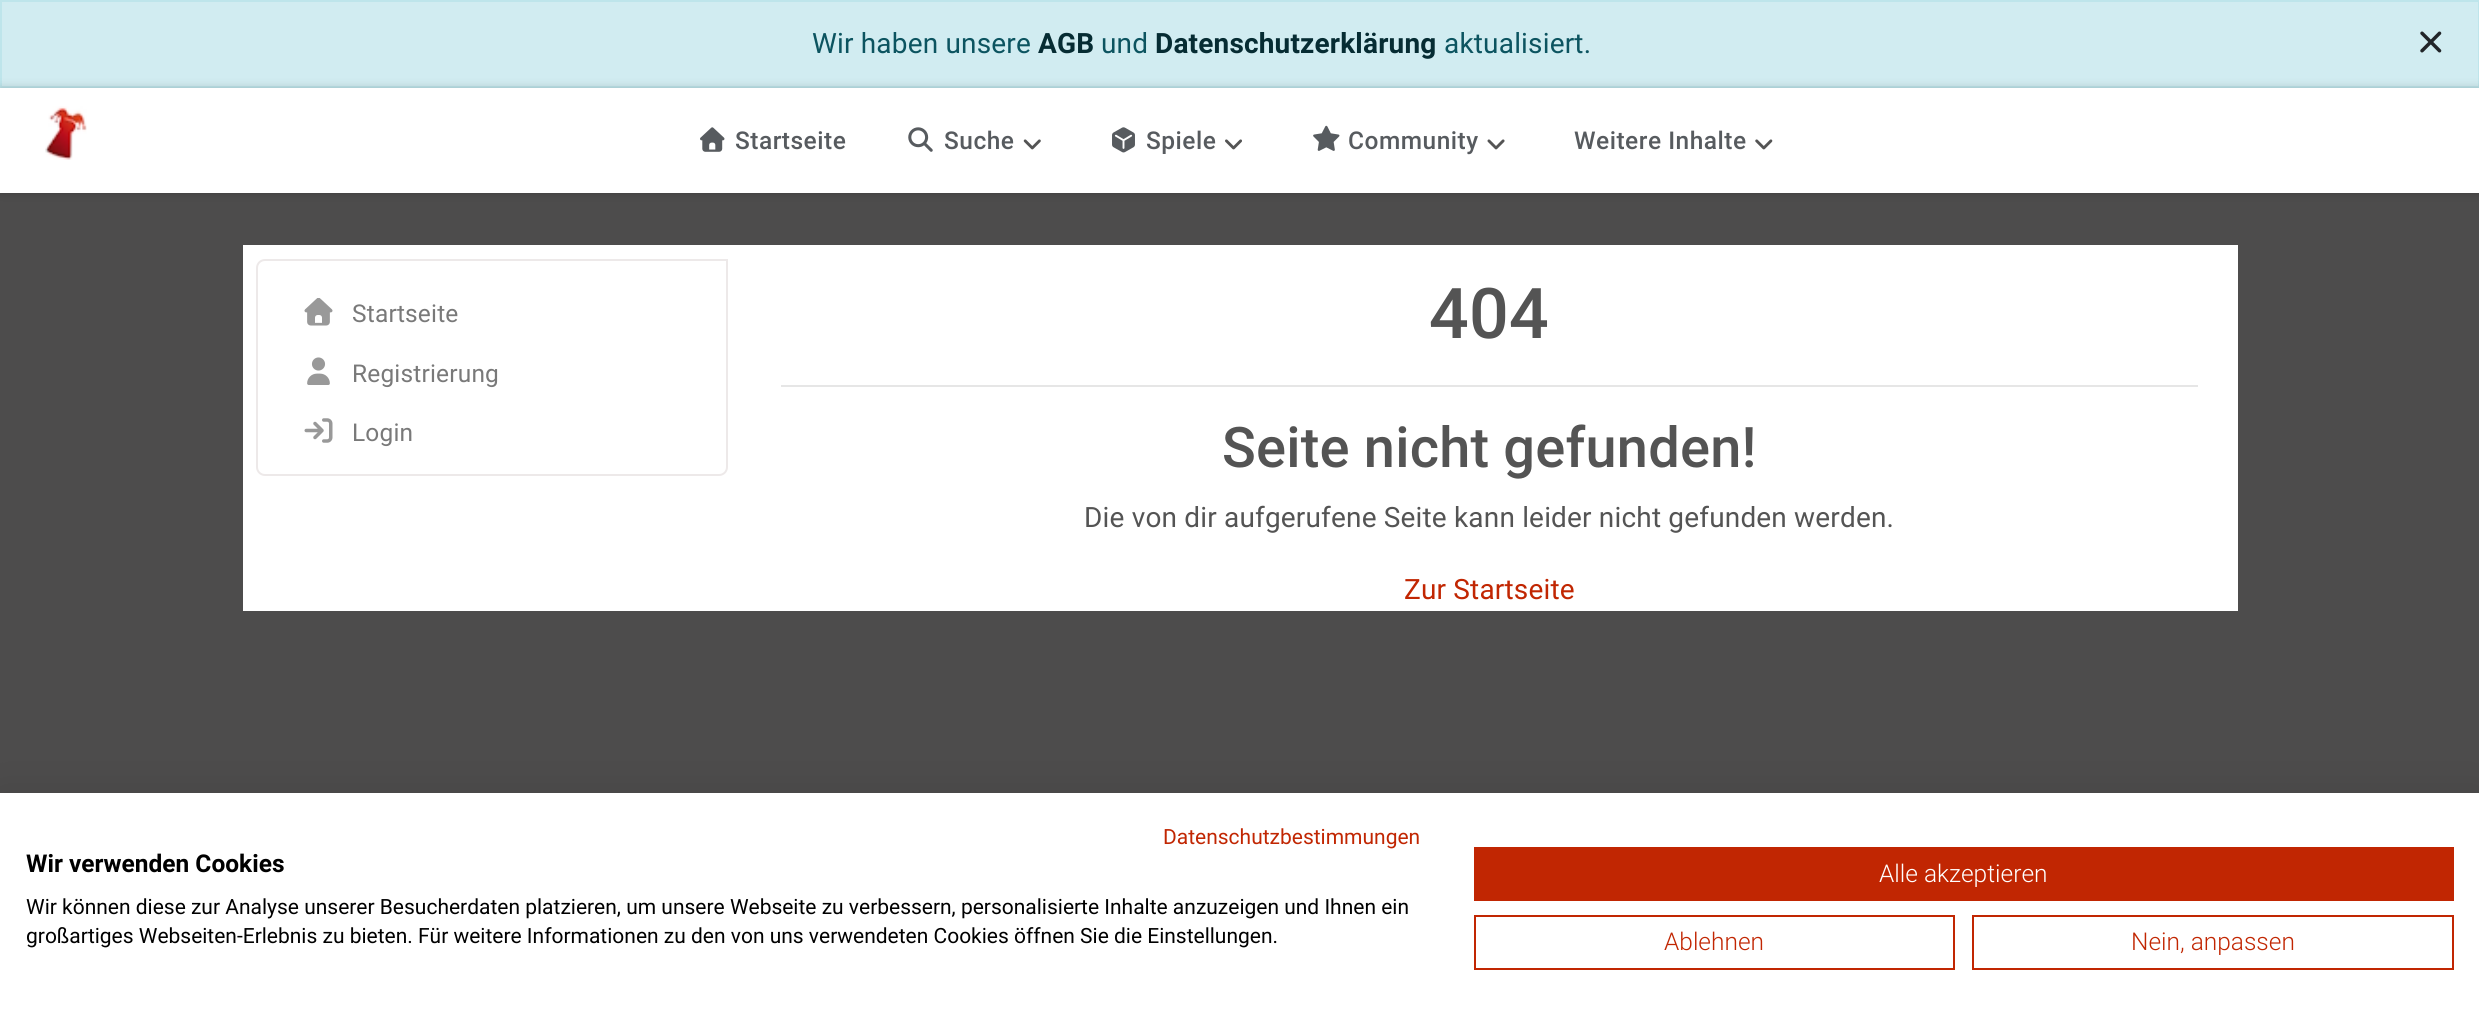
#include <cairo.h>
#include <math.h>
#include <stddef.h>


static void set_color(cairo_t *cr, unsigned color) {
    cairo_set_source_rgb(cr, (color >> 16) / 255.0, (color >> 8 & 255) / 255.0, (color & 255) / 255.0);
}

static void draw_text(cairo_t *cr, double x, double y, const char *s, const char *family, double size, int italic, int bold, unsigned color) {
    cairo_select_font_face(cr, family, italic ? CAIRO_FONT_SLANT_ITALIC : CAIRO_FONT_SLANT_NORMAL,
        bold ? CAIRO_FONT_WEIGHT_BOLD : CAIRO_FONT_WEIGHT_NORMAL);
    cairo_set_font_size(cr, size);
    set_color(cr, color);
    cairo_move_to(cr, x, y);
    cairo_show_text(cr, s);
}

static void draw_spaced(cairo_t *cr, double x, double y, const char *s, double letter, double word) {
    cairo_move_to(cr, x, y);
    while (*s) {
        char ch[5] = {0};
        int n = 0;
        do ch[n++] = *s++; while ((*s & 0xC0) == 0x80);
        cairo_show_text(cr, ch);
        cairo_rel_move_to(cr, letter + word * (*ch == ' '), 0);
    }
}

static void fill_rect(cairo_t *cr, double x, double y, double w, double h, unsigned color) {
    set_color(cr, color);
    cairo_rectangle(cr, x, y, w, h);
    cairo_fill(cr);
}

static void rounded_rect(cairo_t *cr, double x, double y, double w, double h, double r) {
    cairo_new_sub_path(cr);
    cairo_arc(cr, x + w - r, y + h - r, r, 0, M_PI / 2);
    cairo_arc(cr, x + r, y + h - r, r, M_PI / 2, M_PI);
    cairo_arc(cr, x + r, y + r, r, M_PI, 1.5 * M_PI);
    cairo_arc(cr, x + w - r, y + r, r, 1.5 * M_PI, 2 * M_PI);
    cairo_close_path(cr);
}

static void draw_shadow(cairo_t *cr, double x, double y, double w, double h, double r, double blur, double alpha) {
    cairo_push_group_with_content(cr, CAIRO_CONTENT_ALPHA);
    cairo_set_operator(cr, CAIRO_OPERATOR_SOURCE);
    for (int i = 15; i >= -15 && fmin(w, h) + blur * i / 3 > 0; i -= 2) {
        double e = blur * i / 6;
        cairo_set_source_rgba(cr, 0, 0, 0, alpha * erfc((i - 1) / 8.5) / 2);
        rounded_rect(cr, x - e, y - e, w + 2 * e, h + 2 * e, fmax(0, fmin(r + e + blur * .6, fmin(w, h) / 2 + e)));
        cairo_fill(cr);
    }
    cairo_pattern_t *soft = cairo_pop_group(cr);
    cairo_mask(cr, soft);
    cairo_pattern_destroy(soft);
}

static void draw_image(cairo_t *cr, const char *path, double x, double y, double w, double h) {
    cairo_surface_t *image = cairo_image_surface_create_from_png(path);
    cairo_save(cr);
    cairo_set_source_surface(cr, image, x, y);
    cairo_rectangle(cr, x, y, w, h);
    cairo_fill(cr);
    cairo_restore(cr);
    cairo_surface_destroy(image);
}

int main(void) {
    cairo_surface_t *surface = cairo_image_surface_create(CAIRO_FORMAT_RGB24, 2479, 1016);
    cairo_t *cr = cairo_create(surface);
    cairo_font_options_t *options = cairo_font_options_create();
    cairo_font_options_set_hint_metrics(options, CAIRO_HINT_METRICS_OFF);
    cairo_font_options_set_hint_style(options, CAIRO_HINT_STYLE_NONE);
    cairo_set_font_options(cr, options);
    cairo_set_miter_limit(cr, 4);
    set_color(cr, 0xD1ECF1);
    cairo_paint(cr);
    cairo_rectangle(cr, 1, 1, 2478, 86);
    set_color(cr, 0xBEE5EB);
    cairo_stroke(cr);
    cairo_select_font_face(cr, "Roboto", CAIRO_FONT_SLANT_NORMAL, CAIRO_FONT_WEIGHT_NORMAL);
    cairo_set_font_size(cr, 28);
    set_color(cr, 0x0C5460);
    draw_spaced(cr, 812, 53, "Wir haben unsere", 0.18, 0);
    cairo_select_font_face(cr, "Roboto", CAIRO_FONT_SLANT_NORMAL, CAIRO_FONT_WEIGHT_BOLD);
    set_color(cr, 0x062C33);
    draw_spaced(cr, 1038, 53, "AGB", 0.18, 0);
    cairo_select_font_face(cr, "Roboto", CAIRO_FONT_SLANT_NORMAL, CAIRO_FONT_WEIGHT_NORMAL);
    set_color(cr, 0x0C5460);
    draw_spaced(cr, 1101, 53, "und", 0.18, 0);
    cairo_select_font_face(cr, "Roboto", CAIRO_FONT_SLANT_NORMAL, CAIRO_FONT_WEIGHT_BOLD);
    set_color(cr, 0x062C33);
    draw_spaced(cr, 1155, 53, "Datenschutzerklärung", 0.18, 0);
    cairo_select_font_face(cr, "Roboto", CAIRO_FONT_SLANT_NORMAL, CAIRO_FONT_WEIGHT_NORMAL);
    set_color(cr, 0x0C5460);
    draw_spaced(cr, 1444, 53, "aktualisiert.", 0.18, 0);
    draw_image(cr, "assets/img1.png", 2420, 31, 22, 22);
    fill_rect(cr, 0, 193, 2479, 600, 0x4D4C4C);
    set_color(cr, 0x000000);
    draw_shadow(cr, 0, 88, 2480, 105, 0, 4.5, 0.2);
    fill_rect(cr, 0, 88, 2479, 105, 0xFFFFFF);
    draw_image(cr, "assets/img2.png", 45, 106, 42, 54);
    draw_image(cr, "assets/img3.png", 700, 127, 25, 25);
    cairo_select_font_face(cr, "Roboto Medium", CAIRO_FONT_SLANT_NORMAL, CAIRO_FONT_WEIGHT_NORMAL);
    cairo_set_font_size(cr, 24.5);
    set_color(cr, 0x575B5F);
    draw_spaced(cr, 735, 149, "Startseite", 0.5, 0);
    draw_image(cr, "assets/img4.png", 908, 127, 25, 25);
    draw_spaced(cr, 944, 149, "Suche", 0.5, 0);
    draw_image(cr, "assets/img5.png", 1023, 139, 18, 11);
    draw_image(cr, "assets/img6.png", 1112, 127, 23, 26);
    draw_spaced(cr, 1146, 149, "Spiele", 0.5, 0);
    draw_image(cr, "assets/img7.png", 1225, 139, 17, 11);
    draw_image(cr, "assets/img8.png", 1313, 125, 27, 26);
    draw_spaced(cr, 1348, 149, "Community", 0.5, 0);
    draw_image(cr, "assets/img9.png", 1487, 139, 18, 11);
    draw_spaced(cr, 1574, 149, "Weitere Inhalte", 0.5, 0);
    draw_image(cr, "assets/img10.png", 1755, 139, 18, 11);
    fill_rect(cr, 243, 245, 1995, 366, 0xFFFFFF);
    cairo_new_path(cr);
    cairo_move_to(cr, 265, 260);
    cairo_line_to(cr, 727, 260);
    cairo_line_to(cr, 727, 467);
    cairo_curve_to(cr, 727, 471.5, 723.5, 475, 719, 475);
    cairo_line_to(cr, 265, 475);
    cairo_curve_to(cr, 260.5, 475, 257, 471.5, 257, 467);
    cairo_line_to(cr, 257, 268);
    cairo_curve_to(cr, 257, 263.5, 260.5, 260, 265, 260);
    cairo_close_path(cr);
    set_color(cr, 0xEDE9E9);
    cairo_stroke(cr);
    draw_image(cr, "assets/img11.png", 304, 298, 29, 28);
    cairo_select_font_face(cr, "Roboto", CAIRO_FONT_SLANT_NORMAL, CAIRO_FONT_WEIGHT_NORMAL);
    set_color(cr, 0x797979);
    draw_spaced(cr, 352, 322, "Startseite", 0.18, 0);
    draw_image(cr, "assets/img12.png", 307, 357, 23, 28);
    draw_spaced(cr, 352, 382, "Registrierung", 0.18, 0);
    draw_image(cr, "assets/img13.png", 304, 418, 29, 25);
    draw_spaced(cr, 352, 441, "Login", 0.18, 0);
    cairo_select_font_face(cr, "Roboto Medium", CAIRO_FONT_SLANT_NORMAL, CAIRO_FONT_WEIGHT_NORMAL);
    cairo_set_font_size(cr, 70);
    set_color(cr, 0x545454);
    draw_spaced(cr, 1429, 338, "404", 0.18, 0);
    fill_rect(cr, 781, 385, 1417, 2, 0xE6E6E6);
    cairo_set_font_size(cr, 56);
    set_color(cr, 0x545454);
    draw_spaced(cr, 1222, 467, "Seite nicht gefunden!", 0.18, 0);
    cairo_select_font_face(cr, "Roboto", CAIRO_FONT_SLANT_NORMAL, CAIRO_FONT_WEIGHT_NORMAL);
    cairo_set_font_size(cr, 28);
    draw_spaced(cr, 1084, 527, "Die von dir aufgerufene Seite kann leider nicht gefunden werden.", 0.18, 0);
    set_color(cr, 0xC12602);
    draw_spaced(cr, 1404, 599, "Zur Startseite", 0.18, 0);
    set_color(cr, 0x000000);
    draw_shadow(cr, 0, 793, 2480, 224, 0, 21, 0.1);
    fill_rect(cr, 0, 793, 2479, 223, 0xFFFFFF);
    draw_text(cr, 1163, 844, "Datenschutzbestimmungen", "Roboto", 21, 0, 0, 0xC12602);
    draw_text(cr, 26, 872, "Wir verwenden Cookies", "Roboto", 24.5, 0, 1, 0x000000);
    draw_text(cr, 26, 914, "Wir können diese zur Analyse unserer Besucherdaten platzieren, um unsere Webseite zu verbessern, personalisierte Inhalte anzuzeigen und Ihnen ein", "Roboto", 21, 0, 0, 0x000000);
    draw_text(cr, 26, 943, "großartiges Webseiten-Erlebnis zu bieten. Für weitere Informationen zu den von uns verwendeten Cookies öffnen Sie die Einstellungen.", "Roboto", 21, 0, 0, 0x000000);
    fill_rect(cr, 1474, 847, 980, 54, 0xC12602);
    draw_text(cr, 1879, 882, "Alle akzeptieren", "Roboto Light", 24.5, 0, 0, 0xFFFFFF);
    cairo_rectangle(cr, 1475, 916, 479, 53);
    set_color(cr, 0xC12602);
    cairo_stroke(cr);
    draw_text(cr, 1664, 950, "Ablehnen", "Roboto Light", 24.5, 0, 0, 0xC12602);
    cairo_rectangle(cr, 1973, 916, 480, 53);
    cairo_stroke(cr);
    draw_text(cr, 2131, 950, "Nein, anpassen", "Roboto Light", 24.5, 0, 0, 0xC12602);
    cairo_surface_write_to_png(surface, "output.png");
    cairo_font_options_destroy(options);
    cairo_destroy(cr);
    cairo_surface_destroy(surface);
    return 0;
}
